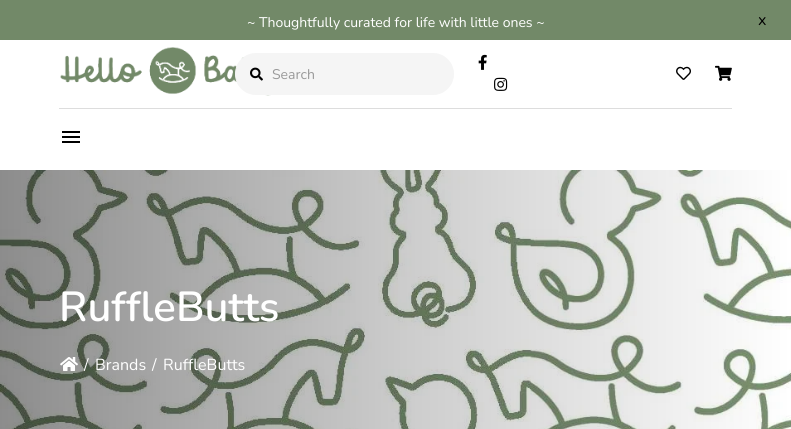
#include <cairo.h>
#include <math.h>
#include <stddef.h>


static void set_color(cairo_t *cr, unsigned color) {
    cairo_set_source_rgb(cr, (color >> 16) / 255.0, (color >> 8 & 255) / 255.0, (color & 255) / 255.0);
}

static void draw_text(cairo_t *cr, double x, double y, const char *s, const char *family, double size, int italic, int bold, unsigned color) {
    cairo_select_font_face(cr, family, italic ? CAIRO_FONT_SLANT_ITALIC : CAIRO_FONT_SLANT_NORMAL,
        bold ? CAIRO_FONT_WEIGHT_BOLD : CAIRO_FONT_WEIGHT_NORMAL);
    cairo_set_font_size(cr, size);
    set_color(cr, color);
    cairo_move_to(cr, x, y);
    cairo_show_text(cr, s);
}

static void fill_rect(cairo_t *cr, double x, double y, double w, double h, unsigned color) {
    set_color(cr, color);
    cairo_rectangle(cr, x, y, w, h);
    cairo_fill(cr);
}

static void rounded_rect(cairo_t *cr, double x, double y, double w, double h, double r) {
    cairo_new_sub_path(cr);
    cairo_arc(cr, x + w - r, y + h - r, r, 0, M_PI / 2);
    cairo_arc(cr, x + r, y + h - r, r, M_PI / 2, M_PI);
    cairo_arc(cr, x + r, y + r, r, M_PI, 1.5 * M_PI);
    cairo_arc(cr, x + w - r, y + r, r, 1.5 * M_PI, 2 * M_PI);
    cairo_close_path(cr);
}

static void draw_image(cairo_t *cr, const char *path, double x, double y, double w, double h) {
    cairo_surface_t *image = cairo_image_surface_create_from_png(path);
    cairo_save(cr);
    cairo_set_source_surface(cr, image, x, y);
    cairo_rectangle(cr, x, y, w, h);
    cairo_fill(cr);
    cairo_restore(cr);
    cairo_surface_destroy(image);
}

int main(void) {
    cairo_surface_t *surface = cairo_image_surface_create(CAIRO_FORMAT_RGB24, 791, 429);
    cairo_t *cr = cairo_create(surface);
    cairo_font_options_t *options = cairo_font_options_create();
    cairo_font_options_set_hint_metrics(options, CAIRO_HINT_METRICS_OFF);
    cairo_font_options_set_hint_style(options, CAIRO_HINT_STYLE_NONE);
    cairo_set_font_options(cr, options);
    cairo_set_miter_limit(cr, 4);
    set_color(cr, 0xFFFFFF);
    cairo_paint(cr);
    fill_rect(cr, 0, 0, 791, 40, 0x728968);
    draw_text(cr, 247, 27, "~ Thoughtfully curated for life with little ones ~", "Nunito", 14, 0, 0, 0xFFFFFF);
    draw_text(cr, 758, 25, "x", "Nunito", 16, 0, 0, 0x000000);
    fill_rect(cr, 59, 108, 673, 1, 0xDDDDDD);
    draw_image(cr, "assets/img1.png", 60, 47, 211, 49);
    set_color(cr, 0xF5F5F5);
    rounded_rect(cr, 235.5, 53.5, 218, 41, 20.5);
    cairo_fill_preserve(cr);
    cairo_set_line_width(cr, 1);
    cairo_stroke(cr);
    draw_image(cr, "assets/img2.png", 250, 67, 13, 14);
    draw_text(cr, 272, 79, "Search", "Nunito", 14, 0, 0, 0x999999);
    draw_image(cr, "assets/img3.png", 478, 54, 9, 16);
    draw_image(cr, "assets/img4.png", 494, 77, 14, 14);
    draw_image(cr, "assets/img5.png", 676, 66, 15, 14);
    draw_image(cr, "assets/img6.png", 715, 65, 17, 16);
    draw_image(cr, "assets/img7.png", 62, 131, 18, 12);
    draw_image(cr, "assets/img8.png", 0, 170, 791, 259);
    draw_text(cr, 59, 321, "RuffleButts", "Nunito SemiBold", 42, 0, 0, 0xFFFFFF);
    draw_image(cr, "assets/img9.png", 60, 357, 18, 14);
    draw_text(cr, 84, 370, "/", "Nunito", 16, 0, 0, 0xFFFFFF);
    draw_text(cr, 95, 370, "Brands", "Nunito", 16, 0, 0, 0xFFFFFF);
    draw_text(cr, 152, 370, "/", "Nunito", 16, 0, 0, 0xFFFFFF);
    draw_text(cr, 163, 370, "RuffleButts", "Nunito", 16, 0, 0, 0xFFFFFF);
    cairo_surface_write_to_png(surface, "output.png");
    cairo_font_options_destroy(options);
    cairo_destroy(cr);
    cairo_surface_destroy(surface);
    return 0;
}
